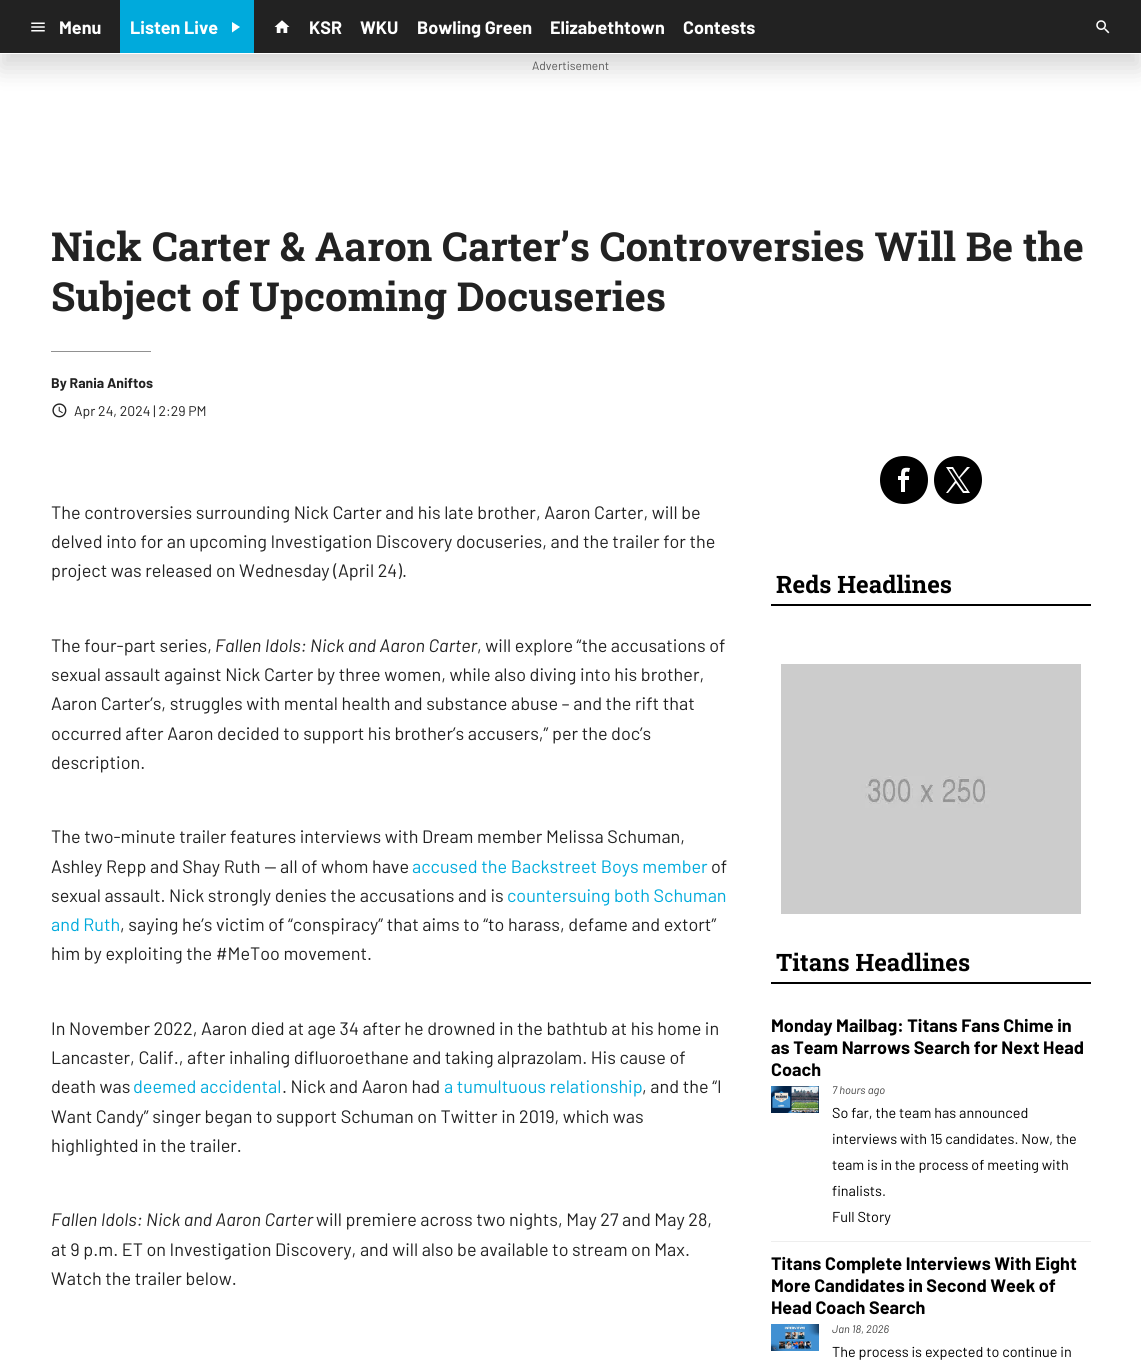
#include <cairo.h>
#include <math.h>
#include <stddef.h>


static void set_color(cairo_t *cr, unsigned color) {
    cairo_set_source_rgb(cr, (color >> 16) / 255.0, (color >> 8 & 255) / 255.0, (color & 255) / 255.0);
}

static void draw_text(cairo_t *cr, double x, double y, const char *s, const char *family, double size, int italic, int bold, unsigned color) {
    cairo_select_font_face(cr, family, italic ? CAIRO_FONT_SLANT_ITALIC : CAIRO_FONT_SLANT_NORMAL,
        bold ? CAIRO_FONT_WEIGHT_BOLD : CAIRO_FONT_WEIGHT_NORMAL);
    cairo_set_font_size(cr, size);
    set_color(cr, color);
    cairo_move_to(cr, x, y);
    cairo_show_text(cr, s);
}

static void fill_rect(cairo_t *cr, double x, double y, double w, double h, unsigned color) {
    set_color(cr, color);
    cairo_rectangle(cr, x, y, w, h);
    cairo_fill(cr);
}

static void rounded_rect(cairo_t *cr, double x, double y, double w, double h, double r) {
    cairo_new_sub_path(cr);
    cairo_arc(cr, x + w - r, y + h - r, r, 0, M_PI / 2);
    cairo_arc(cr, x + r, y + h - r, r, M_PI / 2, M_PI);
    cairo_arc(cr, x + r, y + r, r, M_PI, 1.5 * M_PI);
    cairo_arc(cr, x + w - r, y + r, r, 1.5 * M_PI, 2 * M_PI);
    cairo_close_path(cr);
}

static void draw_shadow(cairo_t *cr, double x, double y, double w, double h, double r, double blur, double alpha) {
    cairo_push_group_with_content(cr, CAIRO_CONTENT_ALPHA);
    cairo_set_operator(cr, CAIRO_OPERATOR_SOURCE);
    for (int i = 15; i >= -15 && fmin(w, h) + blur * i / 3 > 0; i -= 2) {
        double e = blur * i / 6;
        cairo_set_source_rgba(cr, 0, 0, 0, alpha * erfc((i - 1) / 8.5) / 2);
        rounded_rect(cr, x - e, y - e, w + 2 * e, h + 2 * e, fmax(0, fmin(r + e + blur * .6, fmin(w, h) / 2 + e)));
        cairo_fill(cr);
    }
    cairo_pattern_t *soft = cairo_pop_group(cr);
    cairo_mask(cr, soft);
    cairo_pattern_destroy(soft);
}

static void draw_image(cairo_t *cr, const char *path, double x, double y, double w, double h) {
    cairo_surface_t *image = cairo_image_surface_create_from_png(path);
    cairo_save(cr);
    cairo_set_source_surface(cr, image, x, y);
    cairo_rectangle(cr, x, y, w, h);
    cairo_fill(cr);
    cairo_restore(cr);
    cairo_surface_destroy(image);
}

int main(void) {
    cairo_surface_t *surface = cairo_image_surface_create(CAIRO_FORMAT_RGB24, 1141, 1360);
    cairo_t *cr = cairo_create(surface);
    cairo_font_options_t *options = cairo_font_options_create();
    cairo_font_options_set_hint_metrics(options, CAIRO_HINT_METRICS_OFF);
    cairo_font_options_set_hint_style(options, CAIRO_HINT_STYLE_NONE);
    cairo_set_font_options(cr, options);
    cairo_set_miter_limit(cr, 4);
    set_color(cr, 0xFFFFFF);
    cairo_paint(cr);
    set_color(cr, 0x000000);
    draw_shadow(cr, 0, 14, 1141, 54, 0, 12.5, 0.16);
    fill_rect(cr, 0, 0, 1141, 53, 0x222222);
    fill_rect(cr, 0, 53, 1141, 1, 0xFFFFFF);
    draw_image(cr, "assets/img1.png", 31, 22, 14, 10);
    draw_text(cr, 59, 34, "Menu", "Barlow", 18, 0, 1, 0xFFFFFF);
    fill_rect(cr, 120, 0, 134, 53, 0x00AADC);
    draw_text(cr, 130, 34, "Listen Live", "Barlow", 18, 0, 1, 0xFFFFFF);
    cairo_new_path(cr);
    cairo_move_to(cr, 232, 22);
    cairo_line_to(cr, 232, 32.5);
    cairo_line_to(cr, 240, 27);
    cairo_close_path(cr);
    cairo_fill(cr);
    draw_image(cr, "assets/img2.png", 274, 20, 16, 13);
    draw_text(cr, 309, 34, "KSR", "Barlow", 18, 0, 1, 0xFFFFFF);
    draw_text(cr, 360, 34, "WKU", "Barlow", 18, 0, 1, 0xFFFFFF);
    draw_text(cr, 417, 34, "Bowling Green", "Barlow", 18, 0, 1, 0xFFFFFF);
    draw_text(cr, 550, 34, "Elizabethtown", "Barlow", 18, 0, 1, 0xFFFFFF);
    draw_text(cr, 683, 34, "Contests", "Barlow", 18, 0, 1, 0xFFFFFF);
    draw_image(cr, "assets/img3.png", 1096, 20, 14, 14);
    draw_text(cr, 532, 70, "Advertisement", "Barlow", 12, 0, 0, 0x595959);
    draw_text(cr, 51, 261, "Nick Carter & Aaron Carter’s Controversies Will Be the", "Roboto Slab", 40, 0, 1, 0x222222);
    draw_text(cr, 51, 311, "Subject of Upcoming Docuseries", "Roboto Slab", 40, 0, 1, 0x222222);
    fill_rect(cr, 51, 351, 100, 1, 0x919191);
    draw_text(cr, 51, 388, "By Rania Aniftos", "Barlow", 14, 0, 1, 0x222222);
    draw_image(cr, "assets/img4.png", 52, 403, 15, 15);
    draw_text(cr, 74, 416, "Apr 24, 2024 | 2:29 PM", "Barlow", 14, 0, 0, 0x222222);
    draw_text(cr, 51, 519, "The controversies surrounding Nick Carter and his late brother, Aaron Carter, will be", "Barlow", 18, 0, 0, 0x222222);
    draw_text(cr, 51, 548, "delved into for an upcoming Investigation Discovery docuseries, and the trailer for the", "Barlow", 18, 0, 0, 0x222222);
    draw_text(cr, 51, 577, "project was released on Wednesday (April 24).", "Barlow", 18, 0, 0, 0x222222);
    draw_text(cr, 51, 652, "The four-part series,", "Barlow", 18, 0, 0, 0x222222);
    draw_text(cr, 215, 652, "Fallen Idols: Nick and Aaron Carter", "Barlow", 18, 1, 0, 0x222222);
    draw_text(cr, 477, 652, ", will explore “the accusations of", "Barlow", 18, 0, 0, 0x222222);
    draw_text(cr, 51, 681, "sexual assault against Nick Carter by three women, while also diving into his brother,", "Barlow", 18, 0, 0, 0x222222);
    draw_text(cr, 51, 710, "Aaron Carter’s, struggles with mental health and substance abuse – and the rift that", "Barlow", 18, 0, 0, 0x222222);
    draw_text(cr, 51, 740, "occurred after Aaron decided to support his brother’s accusers,” per the doc’s", "Barlow", 18, 0, 0, 0x222222);
    draw_text(cr, 51, 769, "description.", "Barlow", 18, 0, 0, 0x222222);
    draw_text(cr, 51, 843, "The two-minute trailer features interviews with Dream member Melissa Schuman,", "Barlow", 18, 0, 0, 0x222222);
    draw_text(cr, 51, 873, "Ashley Repp and Shay Ruth — all of whom have", "Barlow", 18, 0, 0, 0x222222);
    draw_text(cr, 412, 873, "accused the Backstreet Boys member", "Barlow", 18, 0, 0, 0x00AADC);
    draw_text(cr, 711, 873, "of", "Barlow", 18, 0, 0, 0x222222);
    draw_text(cr, 51, 902, "sexual assault. Nick strongly denies the accusations and is", "Barlow", 18, 0, 0, 0x222222);
    draw_text(cr, 507, 902, "countersuing both Schuman", "Barlow", 18, 0, 0, 0x00AADC);
    draw_text(cr, 51, 931, "and Ruth", "Barlow", 18, 0, 0, 0x00AADC);
    draw_text(cr, 120, 931, ", saying he’s victim of “conspiracy” that aims to “to harass, defame and extort”", "Barlow", 18, 0, 0, 0x222222);
    draw_text(cr, 51, 960, "him by exploiting the #MeToo movement.", "Barlow", 18, 0, 0, 0x222222);
    draw_text(cr, 51, 1035, "In November 2022, Aaron died at age 34 after he drowned in the bathtub at his home in", "Barlow", 18, 0, 0, 0x222222);
    draw_text(cr, 51, 1064, "Lancaster, Calif., after inhaling difluoroethane and taking alprazolam. His cause of", "Barlow", 18, 0, 0, 0x222222);
    draw_text(cr, 51, 1093, "death was", "Barlow", 18, 0, 0, 0x222222);
    draw_text(cr, 133, 1093, "deemed accidental", "Barlow", 18, 0, 0, 0x00AADC);
    draw_text(cr, 282, 1093, ". Nick and Aaron had", "Barlow", 18, 0, 0, 0x222222);
    draw_text(cr, 444, 1093, "a tumultuous relationship", "Barlow", 18, 0, 0, 0x00AADC);
    draw_text(cr, 642, 1093, ", and the “I", "Barlow", 18, 0, 0, 0x222222);
    draw_text(cr, 51, 1123, "Want Candy” singer began to support Schuman on Twitter in 2019, which was", "Barlow", 18, 0, 0, 0x222222);
    draw_text(cr, 51, 1152, "highlighted in the trailer.", "Barlow", 18, 0, 0, 0x222222);
    draw_text(cr, 51, 1226, "Fallen Idols: Nick and Aaron Carter", "Barlow", 18, 1, 0, 0x222222);
    draw_text(cr, 316, 1226, "will premiere across two nights, May 27 and May 28,", "Barlow", 18, 0, 0, 0x222222);
    draw_text(cr, 51, 1256, "at 9 p.m. ET on Investigation Discovery, and will also be available to stream on Max.", "Barlow", 18, 0, 0, 0x222222);
    draw_text(cr, 51, 1285, "Watch the trailer below.", "Barlow", 18, 0, 0, 0x222222);
    set_color(cr, 0x000000);
    cairo_new_path(cr);
    cairo_move_to(cr, 904, 456);
    cairo_curve_to(cr, 872, 456, 872, 504, 904, 504);
    cairo_curve_to(cr, 936, 504, 936, 456, 904, 456);
    cairo_close_path(cr);
    cairo_move_to(cr, 909, 476);
    cairo_line_to(cr, 909, 480);
    cairo_line_to(cr, 905, 480);
    cairo_line_to(cr, 905, 492);
    cairo_line_to(cr, 901, 492);
    cairo_line_to(cr, 901, 480);
    cairo_line_to(cr, 898, 480);
    cairo_line_to(cr, 898, 476);
    cairo_line_to(cr, 901, 476);
    cairo_curve_to(cr, 901, 469, 902, 467, 910, 468);
    cairo_line_to(cr, 909, 472);
    cairo_curve_to(cr, 905, 471, 905, 472, 905, 476);
    cairo_close_path(cr);
    cairo_fill(cr);
    cairo_new_path(cr);
    cairo_move_to(cr, 958, 504);
    cairo_curve_to(cr, 990, 504, 990, 456, 958, 456);
    cairo_curve_to(cr, 926, 456, 926, 504, 958, 504);
    cairo_close_path(cr);
    cairo_move_to(cr, 970, 467);
    cairo_line_to(cr, 960, 478);
    cairo_line_to(cr, 970, 493);
    cairo_line_to(cr, 963, 493);
    cairo_line_to(cr, 956, 483);
    cairo_line_to(cr, 948, 493);
    cairo_line_to(cr, 946, 493);
    cairo_line_to(cr, 955, 481);
    cairo_line_to(cr, 946, 467);
    cairo_line_to(cr, 953, 467);
    cairo_line_to(cr, 959, 477);
    cairo_line_to(cr, 967, 467);
    cairo_close_path(cr);
    cairo_move_to(cr, 956, 480);
    cairo_line_to(cr, 964, 491);
    cairo_line_to(cr, 967, 491);
    cairo_line_to(cr, 952, 469);
    cairo_line_to(cr, 949, 469);
    cairo_close_path(cr);
    cairo_fill(cr);
    fill_rect(cr, 771, 604, 320, 2, 0x000000);
    draw_text(cr, 776, 593, "Reds Headlines", "Roboto Slab", 24, 0, 1, 0x000000);
    draw_image(cr, "assets/img5.png", 781, 664, 300, 250);
    fill_rect(cr, 771, 982, 320, 2, 0x000000);
    draw_text(cr, 776, 971, "Titans Headlines", "Roboto Slab", 24, 0, 1, 0x000000);
    draw_text(cr, 771, 1032, "Monday Mailbag: Titans Fans Chime in", "Barlow", 18, 0, 1, 0x000000);
    draw_text(cr, 771, 1054, "as Team Narrows Search for Next Head", "Barlow", 18, 0, 1, 0x000000);
    draw_text(cr, 771, 1076, "Coach", "Barlow", 18, 0, 1, 0x000000);
    draw_image(cr, "assets/img6.png", 771, 1086, 48, 27);
    draw_text(cr, 832, 1094, "7 hours ago", "Barlow", 11, 1, 0, 0x404040);
    draw_text(cr, 832, 1118, "So far, the team has announced", "Barlow", 14.4, 0, 0, 0x000000);
    draw_text(cr, 832, 1144, "interviews with 15 candidates. Now, the", "Barlow", 14.4, 0, 0, 0x000000);
    draw_text(cr, 832, 1170, "team is in the process of meeting with", "Barlow", 14.4, 0, 0, 0x000000);
    draw_text(cr, 832, 1196, "finalists.", "Barlow", 14.4, 0, 0, 0x000000);
    draw_text(cr, 832, 1222, "Full Story", "Barlow", 14.4, 0, 0, 0x000000);
    fill_rect(cr, 771, 1241, 320, 1, 0xEEEEEE);
    draw_text(cr, 771, 1270, "Titans Complete Interviews With Eight", "Barlow", 18, 0, 1, 0x000000);
    draw_text(cr, 771, 1292, "More Candidates in Second Week of", "Barlow", 18, 0, 1, 0x000000);
    draw_text(cr, 771, 1314, "Head Coach Search", "Barlow", 18, 0, 1, 0x000000);
    draw_image(cr, "assets/img7.png", 771, 1324, 48, 27);
    draw_text(cr, 832, 1333, "Jan 18, 2026", "Barlow", 11, 1, 0, 0x404040);
    draw_text(cr, 832, 1357, "The process is expected to continue in", "Barlow", 14.4, 0, 0, 0x000000);
    cairo_surface_write_to_png(surface, "output.png");
    cairo_font_options_destroy(options);
    cairo_destroy(cr);
    cairo_surface_destroy(surface);
    return 0;
}
